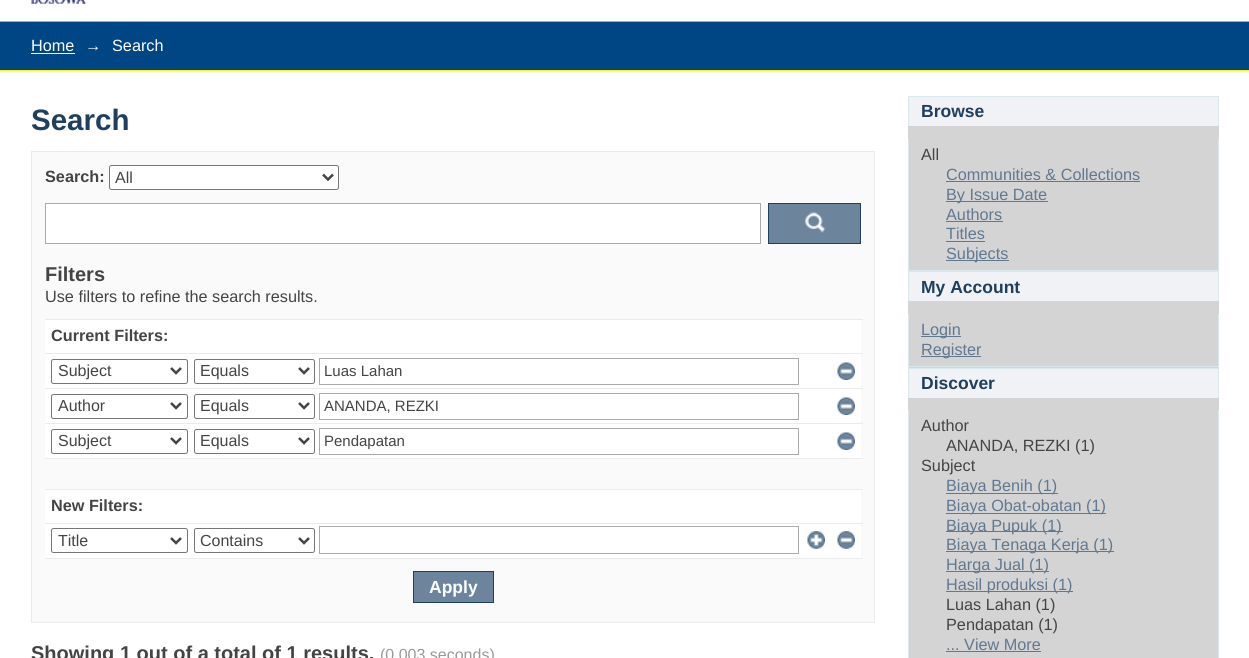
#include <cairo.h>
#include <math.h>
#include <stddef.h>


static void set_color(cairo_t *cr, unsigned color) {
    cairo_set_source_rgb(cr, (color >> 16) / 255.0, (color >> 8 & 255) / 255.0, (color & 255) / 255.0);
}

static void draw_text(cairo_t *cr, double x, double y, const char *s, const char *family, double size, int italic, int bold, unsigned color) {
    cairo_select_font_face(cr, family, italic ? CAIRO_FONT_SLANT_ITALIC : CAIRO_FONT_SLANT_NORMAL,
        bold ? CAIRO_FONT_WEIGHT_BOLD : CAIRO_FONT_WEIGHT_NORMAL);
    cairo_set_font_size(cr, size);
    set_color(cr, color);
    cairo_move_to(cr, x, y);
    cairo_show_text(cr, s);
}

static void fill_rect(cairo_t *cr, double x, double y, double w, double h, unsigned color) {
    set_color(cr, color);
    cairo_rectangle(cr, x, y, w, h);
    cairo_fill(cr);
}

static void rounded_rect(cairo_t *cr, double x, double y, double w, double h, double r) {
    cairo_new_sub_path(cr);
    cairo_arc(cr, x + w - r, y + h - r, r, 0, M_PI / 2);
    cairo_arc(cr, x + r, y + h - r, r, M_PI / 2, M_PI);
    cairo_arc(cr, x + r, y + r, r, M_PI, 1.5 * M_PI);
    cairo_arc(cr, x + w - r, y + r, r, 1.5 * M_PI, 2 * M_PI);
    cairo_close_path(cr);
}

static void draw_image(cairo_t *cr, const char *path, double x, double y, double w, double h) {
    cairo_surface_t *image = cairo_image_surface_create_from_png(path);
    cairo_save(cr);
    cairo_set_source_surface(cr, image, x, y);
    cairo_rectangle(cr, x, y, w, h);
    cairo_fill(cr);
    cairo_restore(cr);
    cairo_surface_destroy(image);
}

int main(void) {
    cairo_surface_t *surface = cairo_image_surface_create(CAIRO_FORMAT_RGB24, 1249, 658);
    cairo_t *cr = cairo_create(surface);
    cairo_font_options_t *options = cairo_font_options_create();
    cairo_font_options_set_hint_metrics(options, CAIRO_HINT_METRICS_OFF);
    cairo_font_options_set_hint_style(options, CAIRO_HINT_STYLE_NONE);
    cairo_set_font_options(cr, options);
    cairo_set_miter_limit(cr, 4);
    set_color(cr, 0xFFFFFF);
    cairo_paint(cr);
    draw_image(cr, "assets/img1.png", 31, 0, 55, 4);
    fill_rect(cr, 0, 22, 1249, 48, 0x004684);
    fill_rect(cr, 0, 21, 1249, 1, 0x9CACBA);
    fill_rect(cr, 0, 70, 1249, 1, 0xFFF700);
    draw_text(cr, 31, 51, "Home", "Liberation Sans", 16.25, 0, 0, 0xFFFFFF);
    fill_rect(cr, 31, 53, 44, 1, 0xFFFFFF);
    draw_text(cr, 85, 51, "→", "Liberation Sans", 16.25, 0, 0, 0xFFFFFF);
    draw_text(cr, 112, 51, "Search", "Liberation Sans", 16.25, 0, 0, 0xFFFFFF);
    draw_text(cr, 31, 130, "Search", "Liberation Sans", 29.5, 0, 1, 0x1F3F5E);
    set_color(cr, 0xFAFAFA);
    cairo_rectangle(cr, 31.5, 151.5, 843, 471);
    cairo_fill_preserve(cr);
    set_color(cr, 0xEBEBEB);
    cairo_set_line_width(cr, 1);
    cairo_stroke(cr);
    draw_text(cr, 45, 182, "Search:", "Liberation Sans", 16.25, 0, 1, 0x444444);
    set_color(cr, 0xFFFFFF);
    rounded_rect(cr, 109.5, 165.5, 229, 24, 2);
    cairo_fill_preserve(cr);
    set_color(cr, 0x767676);
    cairo_stroke(cr);
    cairo_new_path(cr);
    cairo_move_to(cr, 323, 174.5);
    cairo_line_to(cr, 328, 179.5);
    cairo_line_to(cr, 333, 174.5);
    set_color(cr, 0x444444);
    cairo_set_line_width(cr, 2.5);
    cairo_stroke(cr);
    draw_text(cr, 115, 183, "All", "Liberation Sans", 16, 0, 0, 0x444444);
    set_color(cr, 0xFFFFFF);
    cairo_rectangle(cr, 45.5, 203.5, 715, 40);
    cairo_fill_preserve(cr);
    set_color(cr, 0xAAAAAA);
    cairo_set_line_width(cr, 1);
    cairo_stroke(cr);
    fill_rect(cr, 769, 204, 91, 39, 0x6D859C);
    draw_image(cr, "assets/img2.png", 804, 212, 22, 21);
    cairo_rectangle(cr, 768.5, 203.5, 92, 40);
    set_color(cr, 0x1F3F5E);
    cairo_stroke(cr);
    draw_text(cr, 45, 281, "Filters", "Liberation Sans", 20, 0, 1, 0x444444);
    draw_text(cr, 45, 302, "Use filters to refine the search results.", "Liberation Sans", 16.25, 0, 0, 0x444444);
    fill_rect(cr, 45, 320, 816, 238, 0xFFFFFF);
    fill_rect(cr, 45, 319, 818, 1, 0xEBEBEB);
    draw_text(cr, 51, 341, "Current Filters:", "Liberation Sans", 16.25, 0, 1, 0x444444);
    fill_rect(cr, 45, 353, 818, 1, 0xEBEBEB);
    rounded_rect(cr, 51.5, 359.5, 136, 24, 2);
    set_color(cr, 0x767676);
    cairo_stroke(cr);
    cairo_new_path(cr);
    cairo_move_to(cr, 171, 368);
    cairo_line_to(cr, 176, 373);
    cairo_line_to(cr, 181, 368);
    set_color(cr, 0x444444);
    cairo_set_line_width(cr, 2.5);
    cairo_stroke(cr);
    draw_text(cr, 58, 376, "Subject", "Liberation Sans", 16, 0, 0, 0x444444);
    rounded_rect(cr, 194.5, 359.5, 120, 24, 2);
    set_color(cr, 0x767676);
    cairo_set_line_width(cr, 1);
    cairo_stroke(cr);
    cairo_new_path(cr);
    cairo_move_to(cr, 299, 368);
    cairo_line_to(cr, 304, 373);
    cairo_line_to(cr, 309, 368);
    set_color(cr, 0x444444);
    cairo_set_line_width(cr, 2.5);
    cairo_stroke(cr);
    draw_text(cr, 200, 376, "Equals", "Liberation Sans", 16, 0, 0, 0x444444);
    cairo_rectangle(cr, 319.5, 358.5, 479, 26);
    set_color(cr, 0xAAAAAA);
    cairo_set_line_width(cr, 1);
    cairo_stroke(cr);
    draw_text(cr, 324, 376, "Luas Lahan", "Liberation Sans", 15, 0, 0, 0x444444);
    draw_image(cr, "assets/img3.png", 837, 362, 18, 18);
    fill_rect(cr, 45, 388, 818, 1, 0xEBEBEB);
    rounded_rect(cr, 51.5, 394.5, 136, 24, 2);
    set_color(cr, 0x767676);
    cairo_stroke(cr);
    cairo_new_path(cr);
    cairo_move_to(cr, 171, 403);
    cairo_line_to(cr, 176, 408);
    cairo_line_to(cr, 181, 403);
    set_color(cr, 0x444444);
    cairo_set_line_width(cr, 2.5);
    cairo_stroke(cr);
    draw_text(cr, 58, 411, "Author", "Liberation Sans", 16, 0, 0, 0x444444);
    rounded_rect(cr, 194.5, 394.5, 120, 24, 2);
    set_color(cr, 0x767676);
    cairo_set_line_width(cr, 1);
    cairo_stroke(cr);
    cairo_new_path(cr);
    cairo_move_to(cr, 299, 403);
    cairo_line_to(cr, 304, 408);
    cairo_line_to(cr, 309, 403);
    set_color(cr, 0x444444);
    cairo_set_line_width(cr, 2.5);
    cairo_stroke(cr);
    draw_text(cr, 200, 411, "Equals", "Liberation Sans", 16, 0, 0, 0x444444);
    cairo_rectangle(cr, 319.5, 393.5, 479, 26);
    set_color(cr, 0xAAAAAA);
    cairo_set_line_width(cr, 1);
    cairo_stroke(cr);
    draw_text(cr, 324, 411, "ANANDA, REZKI", "Liberation Sans", 15, 0, 0, 0x444444);
    draw_image(cr, "assets/img3.png", 837, 397, 18, 18);
    fill_rect(cr, 45, 423, 818, 1, 0xEBEBEB);
    rounded_rect(cr, 51.5, 429.5, 136, 24, 2);
    set_color(cr, 0x767676);
    cairo_stroke(cr);
    cairo_new_path(cr);
    cairo_move_to(cr, 171, 438);
    cairo_line_to(cr, 176, 443);
    cairo_line_to(cr, 181, 438);
    set_color(cr, 0x444444);
    cairo_set_line_width(cr, 2.5);
    cairo_stroke(cr);
    draw_text(cr, 58, 446, "Subject", "Liberation Sans", 16, 0, 0, 0x444444);
    rounded_rect(cr, 194.5, 429.5, 120, 24, 2);
    set_color(cr, 0x767676);
    cairo_set_line_width(cr, 1);
    cairo_stroke(cr);
    cairo_new_path(cr);
    cairo_move_to(cr, 299, 438);
    cairo_line_to(cr, 304, 443);
    cairo_line_to(cr, 309, 438);
    set_color(cr, 0x444444);
    cairo_set_line_width(cr, 2.5);
    cairo_stroke(cr);
    draw_text(cr, 200, 446, "Equals", "Liberation Sans", 16, 0, 0, 0x444444);
    cairo_rectangle(cr, 319.5, 428.5, 479, 26);
    set_color(cr, 0xAAAAAA);
    cairo_set_line_width(cr, 1);
    cairo_stroke(cr);
    draw_text(cr, 324, 446, "Pendapatan", "Liberation Sans", 15, 0, 0, 0x444444);
    draw_image(cr, "assets/img3.png", 837, 432, 18, 18);
    fill_rect(cr, 45, 459, 816, 30, 0xFAFAFA);
    fill_rect(cr, 45, 458, 818, 1, 0xEBEBEB);
    fill_rect(cr, 45, 489, 818, 1, 0xEBEBEB);
    draw_text(cr, 51, 511, "New Filters:", "Liberation Sans", 16.25, 0, 1, 0x444444);
    fill_rect(cr, 45, 523, 818, 1, 0xEBEBEB);
    rounded_rect(cr, 51.5, 528.5, 136, 24, 2);
    set_color(cr, 0x767676);
    cairo_stroke(cr);
    cairo_new_path(cr);
    cairo_move_to(cr, 171, 538);
    cairo_line_to(cr, 176, 543);
    cairo_line_to(cr, 181, 538);
    set_color(cr, 0x444444);
    cairo_set_line_width(cr, 2.5);
    cairo_stroke(cr);
    draw_text(cr, 58, 546, "Title", "Liberation Sans", 16, 0, 0, 0x444444);
    rounded_rect(cr, 194.5, 528.5, 120, 24, 2);
    set_color(cr, 0x767676);
    cairo_set_line_width(cr, 1);
    cairo_stroke(cr);
    cairo_new_path(cr);
    cairo_move_to(cr, 299, 538);
    cairo_line_to(cr, 304, 543);
    cairo_line_to(cr, 309, 538);
    set_color(cr, 0x444444);
    cairo_set_line_width(cr, 2.5);
    cairo_stroke(cr);
    draw_text(cr, 200, 546, "Contains", "Liberation Sans", 16, 0, 0, 0x444444);
    cairo_rectangle(cr, 319.5, 526.5, 479, 27);
    set_color(cr, 0xAAAAAA);
    cairo_set_line_width(cr, 1);
    cairo_stroke(cr);
    draw_image(cr, "assets/img4.png", 807, 531, 18, 18);
    draw_image(cr, "assets/img5.png", 837, 531, 18, 18);
    fill_rect(cr, 45, 558, 818, 1, 0xEBEBEB);
    set_color(cr, 0x6D859C);
    cairo_rectangle(cr, 413.5, 571.5, 80, 31);
    cairo_fill_preserve(cr);
    set_color(cr, 0x1F3F5E);
    cairo_stroke(cr);
    draw_text(cr, 429, 593, "Apply", "Liberation Sans", 17.5, 0, 1, 0xFFFFFF);
    draw_text(cr, 31, 660, "Showing 1 out of a total of 1 results.", "Liberation Sans", 20, 0, 1, 0x444444);
    draw_text(cr, 380, 660, "(0.003 seconds)", "Liberation Sans", 16, 0, 0, 0x999999);
    fill_rect(cr, 908, 126, 311, 532, 0xD4D4D4);
    fill_rect(cr, 909, 97, 309, 29, 0xF0F2F5);
    fill_rect(cr, 908, 96, 311, 1, 0xD8E8EB);
    fill_rect(cr, 1218, 96, 1, 30, 0xD8E8EB);
    fill_rect(cr, 908, 96, 1, 30, 0xD8E8EB);
    draw_text(cr, 921, 117, "Browse", "Liberation Sans", 17.5, 0, 1, 0x1F3F5E);
    fill_rect(cr, 1218, 139, 1, 132, 0xD8E8EB);
    fill_rect(cr, 908, 270, 311, 2, 0xD8E8EB);
    fill_rect(cr, 908, 139, 1, 162, 0xD8E8EB);
    draw_text(cr, 921, 160, "All", "Liberation Sans", 16.25, 0, 0, 0x444444);
    draw_text(cr, 946, 180, "Communities & Collections", "Liberation Sans", 16.25, 0, 0, 0x607890);
    fill_rect(cr, 946, 181, 194, 1, 0x607890);
    fill_rect(cr, 946, 201, 102, 1, 0x607890);
    draw_text(cr, 946, 200, "By Issue Date", "Liberation Sans", 16.25, 0, 0, 0x607890);
    draw_text(cr, 946, 220, "Authors", "Liberation Sans", 16.25, 0, 0, 0x607890);
    fill_rect(cr, 946, 221, 57, 1, 0x607890);
    draw_text(cr, 946, 239, "Titles", "Liberation Sans", 16.25, 0, 0, 0x607890);
    fill_rect(cr, 946, 241, 39, 1, 0x607890);
    fill_rect(cr, 946, 260, 63, 1, 0x607890);
    draw_text(cr, 946, 259, "Subjects", "Liberation Sans", 16.25, 0, 0, 0x607890);
    fill_rect(cr, 909, 272, 309, 29, 0xF0F2F5);
    fill_rect(cr, 1218, 271, 1, 30, 0xD8E8EB);
    draw_text(cr, 921, 293, "My Account", "Liberation Sans", 17.5, 0, 1, 0x1F3F5E);
    fill_rect(cr, 1218, 314, 1, 54, 0xD8E8EB);
    fill_rect(cr, 908, 366, 311, 1, 0xD8E8EB);
    fill_rect(cr, 908, 314, 1, 54, 0xD8E8EB);
    fill_rect(cr, 921, 336, 40, 1, 0x607890);
    draw_text(cr, 921, 335, "Login", "Liberation Sans", 16.25, 0, 0, 0x607890);
    fill_rect(cr, 921, 356, 60, 1, 0x607890);
    draw_text(cr, 921, 355, "Register", "Liberation Sans", 16.25, 0, 0, 0x607890);
    fill_rect(cr, 909, 369, 309, 29, 0xF0F2F5);
    fill_rect(cr, 908, 368, 311, 1, 0xD8E8EB);
    fill_rect(cr, 1218, 368, 1, 30, 0xD8E8EB);
    fill_rect(cr, 908, 368, 1, 30, 0xD8E8EB);
    draw_text(cr, 921, 389, "Discover", "Liberation Sans", 17.5, 0, 1, 0x1F3F5E);
    fill_rect(cr, 1218, 410, 1, 248, 0xD8E8EB);
    fill_rect(cr, 908, 410, 1, 248, 0xD8E8EB);
    draw_text(cr, 921, 431, "Author", "Liberation Sans", 16.25, 0, 0, 0x444444);
    draw_text(cr, 946, 451, "ANANDA, REZKI (1)", "Liberation Sans", 16.25, 0, 0, 0x444444);
    draw_text(cr, 921, 471, "Subject", "Liberation Sans", 16.25, 0, 0, 0x444444);
    fill_rect(cr, 946, 493, 112, 1, 0x607890);
    draw_text(cr, 946, 491, "Biaya Benih (1)", "Liberation Sans", 16.25, 0, 0, 0x607890);
    fill_rect(cr, 946, 513, 160, 1, 0x607890);
    draw_text(cr, 946, 511, "Biaya Obat-obatan (1)", "Liberation Sans", 16.25, 0, 0, 0x607890);
    fill_rect(cr, 946, 531, 117, 1, 0x607890);
    draw_text(cr, 946, 531, "Biaya Pupuk (1)", "Liberation Sans", 16.25, 0, 0, 0x607890);
    fill_rect(cr, 946, 551, 168, 1, 0x607890);
    draw_text(cr, 946, 550, "Biaya Tenaga Kerja (1)", "Liberation Sans", 16.25, 0, 0, 0x607890);
    fill_rect(cr, 946, 571, 103, 1, 0x607890);
    draw_text(cr, 946, 570, "Harga Jual (1)", "Liberation Sans", 16.25, 0, 0, 0x607890);
    fill_rect(cr, 946, 591, 127, 1, 0x607890);
    draw_text(cr, 946, 590, "Hasil produksi (1)", "Liberation Sans", 16.25, 0, 0, 0x607890);
    draw_text(cr, 946, 610, "Luas Lahan (1)", "Liberation Sans", 16.25, 0, 0, 0x444444);
    draw_text(cr, 946, 630, "Pendapatan (1)", "Liberation Sans", 16.25, 0, 0, 0x444444);
    draw_text(cr, 946, 650, "... View More", "Liberation Sans", 16.25, 0, 0, 0x607890);
    fill_rect(cr, 946, 651, 95, 1, 0x607890);
    cairo_surface_write_to_png(surface, "output.png");
    cairo_font_options_destroy(options);
    cairo_destroy(cr);
    cairo_surface_destroy(surface);
    return 0;
}
